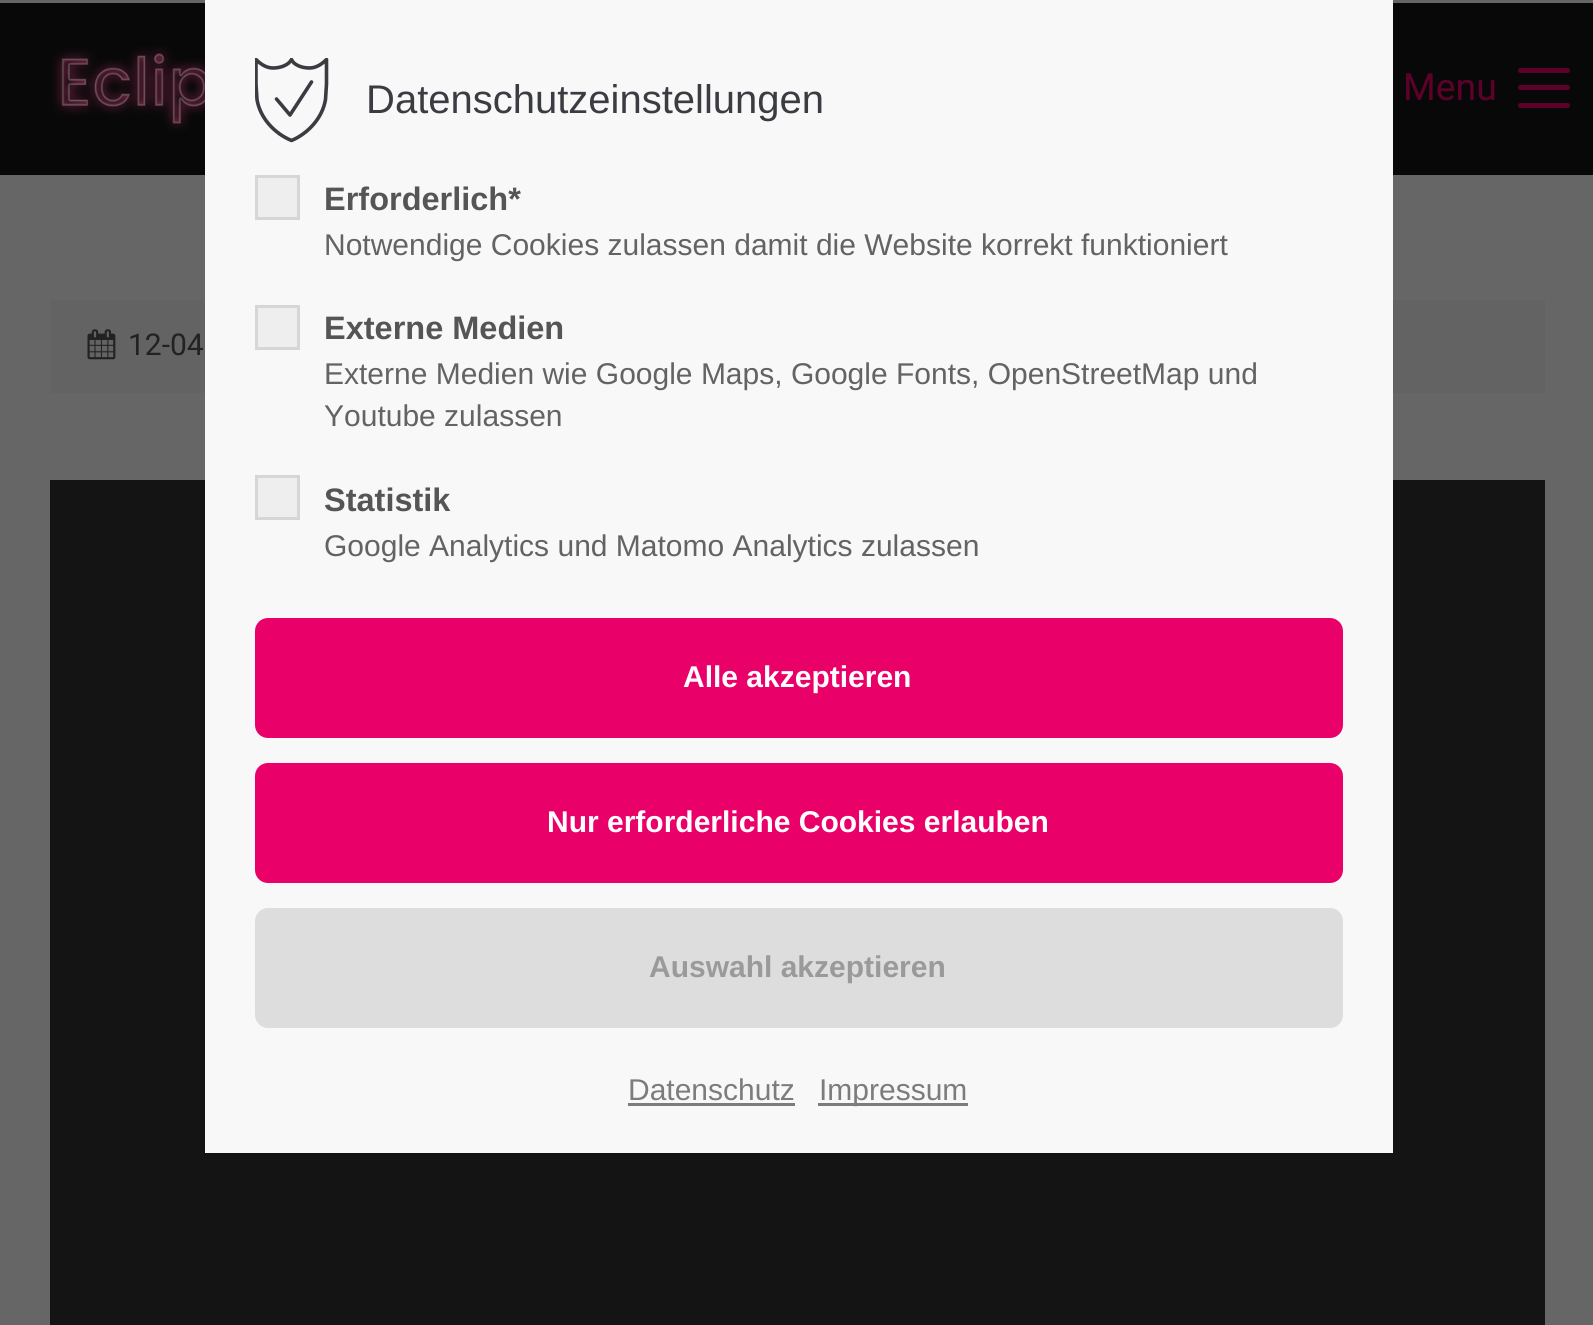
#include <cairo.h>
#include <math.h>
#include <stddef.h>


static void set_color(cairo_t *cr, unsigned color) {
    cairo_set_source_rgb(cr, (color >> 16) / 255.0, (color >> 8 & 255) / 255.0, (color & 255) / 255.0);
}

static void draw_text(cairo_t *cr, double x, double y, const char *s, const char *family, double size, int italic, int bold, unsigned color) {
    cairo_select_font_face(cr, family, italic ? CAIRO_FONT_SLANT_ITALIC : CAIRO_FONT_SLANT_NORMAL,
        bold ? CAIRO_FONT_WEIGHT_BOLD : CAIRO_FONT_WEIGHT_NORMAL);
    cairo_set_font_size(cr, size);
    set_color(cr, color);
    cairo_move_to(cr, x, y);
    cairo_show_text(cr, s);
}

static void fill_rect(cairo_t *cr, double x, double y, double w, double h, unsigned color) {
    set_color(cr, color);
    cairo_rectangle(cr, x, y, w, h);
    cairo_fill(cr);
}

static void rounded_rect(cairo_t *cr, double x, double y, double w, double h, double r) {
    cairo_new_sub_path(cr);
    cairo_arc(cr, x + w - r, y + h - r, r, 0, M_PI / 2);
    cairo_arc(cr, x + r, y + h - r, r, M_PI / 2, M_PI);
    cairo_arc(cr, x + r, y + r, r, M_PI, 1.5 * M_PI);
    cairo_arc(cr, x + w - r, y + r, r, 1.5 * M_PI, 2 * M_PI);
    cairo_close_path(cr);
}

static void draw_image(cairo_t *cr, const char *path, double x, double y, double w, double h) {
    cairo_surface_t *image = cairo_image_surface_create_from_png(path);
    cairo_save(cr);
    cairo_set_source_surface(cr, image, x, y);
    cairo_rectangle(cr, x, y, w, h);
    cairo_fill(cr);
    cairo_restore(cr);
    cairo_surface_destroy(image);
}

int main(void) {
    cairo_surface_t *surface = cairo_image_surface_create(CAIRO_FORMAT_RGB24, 1593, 1325);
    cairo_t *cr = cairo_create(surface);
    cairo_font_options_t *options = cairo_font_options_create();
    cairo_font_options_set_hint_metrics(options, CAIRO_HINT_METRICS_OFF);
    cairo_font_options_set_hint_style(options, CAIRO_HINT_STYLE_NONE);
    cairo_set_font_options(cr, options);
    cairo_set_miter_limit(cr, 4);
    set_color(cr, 0x666666);
    cairo_paint(cr);
    fill_rect(cr, 0, 3, 1593, 172, 0x080808);
    draw_image(cr, "assets/img1.png", 52, 45, 153, 88);
    draw_text(cr, 1403, 100, "Menu", "Roboto", 37.5, 0, 0, 0x5D002A);
    rounded_rect(cr, 1518, 85, 52, 5, 2.5);
    cairo_fill(cr);
    rounded_rect(cr, 1518, 68, 52, 5, 2.5);
    cairo_fill(cr);
    rounded_rect(cr, 1518, 103, 52, 5, 2.5);
    cairo_fill(cr);
    fill_rect(cr, 50, 300, 1495, 93, 0x636363);
    draw_image(cr, "assets/img2.png", 87, 329, 29, 31);
    draw_text(cr, 128, 355, "12-04", "Roboto", 30, 0, 0, 0x222222);
    fill_rect(cr, 50, 480, 1495, 845, 0x141414);
    fill_rect(cr, 205, 0, 1188, 1153, 0xF8F8F8);
    cairo_save(cr);
    cairo_rectangle(cr, 255, 58, 75, 85);
    cairo_clip(cr);
    cairo_new_path(cr);
    cairo_move_to(cr, 291.5, 140.5);
    cairo_curve_to(cr, 274.5, 133.5, 260, 118, 257, 99.5);
    cairo_line_to(cr, 256, 84);
    cairo_line_to(cr, 256, 59.5);
    cairo_curve_to(cr, 259.5, 63, 265.5, 68, 273, 68);
    cairo_curve_to(cr, 281.5, 68, 289, 64.5, 291.5, 59.5);
    cairo_curve_to(cr, 293.5, 64.5, 301, 68, 309.5, 68);
    cairo_curve_to(cr, 317, 68, 323, 63, 326.5, 59.5);
    cairo_line_to(cr, 326.5, 84);
    cairo_line_to(cr, 325.5, 99.5);
    cairo_curve_to(cr, 322.5, 118, 308, 133.5, 291.5, 140.5);
    cairo_close_path(cr);
    set_color(cr, 0x3B3C41);
    cairo_set_line_width(cr, 3.6);
    cairo_set_line_cap(cr, CAIRO_LINE_CAP_ROUND);
    cairo_set_line_join(cr, CAIRO_LINE_JOIN_ROUND);
    cairo_stroke(cr);
    cairo_restore(cr);
    cairo_new_path(cr);
    cairo_move_to(cr, 276.5, 99);
    cairo_line_to(cr, 290, 115);
    cairo_line_to(cr, 311.5, 82);
    set_color(cr, 0x3B3C41);
    cairo_set_line_width(cr, 3.6);
    cairo_set_line_cap(cr, CAIRO_LINE_CAP_ROUND);
    cairo_set_line_join(cr, CAIRO_LINE_JOIN_ROUND);
    cairo_stroke(cr);
    draw_text(cr, 366, 113, "Datenschutzeinstellungen", "Liberation Sans", 40, 0, 0, 0x3B3C42);
    set_color(cr, 0xEEEEEE);
    cairo_rectangle(cr, 256.5, 176.5, 42, 42);
    cairo_fill_preserve(cr);
    set_color(cr, 0xD6D6D6);
    cairo_set_line_width(cr, 3);
    cairo_set_line_cap(cr, CAIRO_LINE_CAP_BUTT);
    cairo_set_line_join(cr, CAIRO_LINE_JOIN_MITER);
    cairo_stroke(cr);
    draw_text(cr, 324, 210, "Erforderlich*", "Liberation Sans", 32.5, 0, 1, 0x555555);
    draw_text(cr, 324, 255, "Notwendige Cookies zulassen damit die Website korrekt funktioniert", "Liberation Sans", 30, 0, 0, 0x636363);
    set_color(cr, 0xEEEEEE);
    cairo_rectangle(cr, 256.5, 306.5, 42, 42);
    cairo_fill_preserve(cr);
    set_color(cr, 0xD6D6D6);
    cairo_stroke(cr);
    draw_text(cr, 324, 339, "Externe Medien", "Liberation Sans", 32.5, 0, 1, 0x555555);
    draw_text(cr, 324, 384, "Externe Medien wie Google Maps, Google Fonts, OpenStreetMap und", "Liberation Sans", 30, 0, 0, 0x636363);
    draw_text(cr, 324, 426, "Youtube zulassen", "Liberation Sans", 30, 0, 0, 0x636363);
    set_color(cr, 0xEEEEEE);
    cairo_rectangle(cr, 256.5, 476.5, 42, 42);
    cairo_fill_preserve(cr);
    set_color(cr, 0xD6D6D6);
    cairo_stroke(cr);
    draw_text(cr, 324, 511, "Statistik", "Liberation Sans", 32.5, 0, 1, 0x555555);
    draw_text(cr, 324, 556, "Google Analytics und Matomo Analytics zulassen", "Liberation Sans", 30, 0, 0, 0x636363);
    set_color(cr, 0xE90069);
    rounded_rect(cr, 255, 618, 1088, 120, 13);
    cairo_fill(cr);
    draw_text(cr, 683, 687, "Alle akzeptieren", "Liberation Sans", 30, 0, 1, 0xFFFFFF);
    set_color(cr, 0xE90069);
    rounded_rect(cr, 255, 763, 1088, 120, 13);
    cairo_fill(cr);
    draw_text(cr, 547, 832, "Nur erforderliche Cookies erlauben", "Liberation Sans", 30, 0, 1, 0xFFFFFF);
    set_color(cr, 0xDDDDDD);
    rounded_rect(cr, 255, 908, 1088, 120, 13);
    cairo_fill(cr);
    draw_text(cr, 649, 977, "Auswahl akzeptieren", "Liberation Sans", 30, 0, 1, 0x9A9A9A);
    draw_text(cr, 628, 1100, "Datenschutz", "Liberation Sans", 30, 0, 0, 0x7C7C7C);
    fill_rect(cr, 628, 1103, 167, 3, 0x7C7C7C);
    fill_rect(cr, 818, 1103, 150, 3, 0x7C7C7C);
    draw_text(cr, 819, 1100, "Impressum", "Liberation Sans", 30, 0, 0, 0x7C7C7C);
    cairo_surface_write_to_png(surface, "output.png");
    cairo_font_options_destroy(options);
    cairo_destroy(cr);
    cairo_surface_destroy(surface);
    return 0;
}
